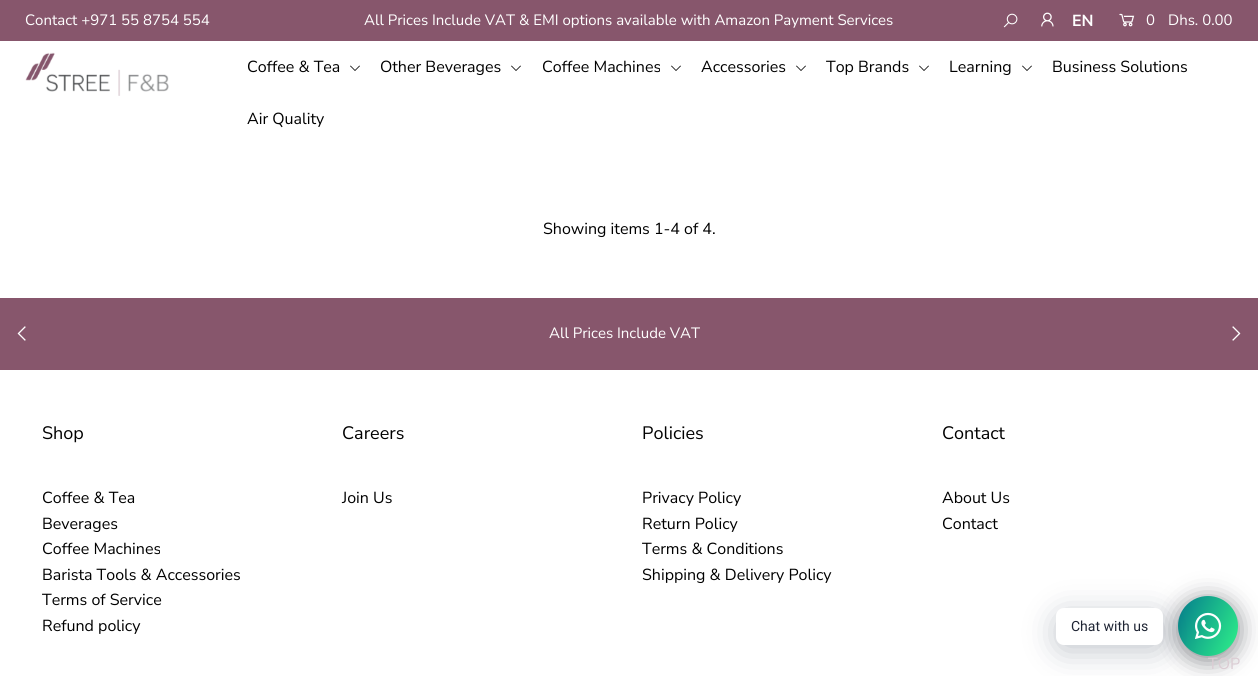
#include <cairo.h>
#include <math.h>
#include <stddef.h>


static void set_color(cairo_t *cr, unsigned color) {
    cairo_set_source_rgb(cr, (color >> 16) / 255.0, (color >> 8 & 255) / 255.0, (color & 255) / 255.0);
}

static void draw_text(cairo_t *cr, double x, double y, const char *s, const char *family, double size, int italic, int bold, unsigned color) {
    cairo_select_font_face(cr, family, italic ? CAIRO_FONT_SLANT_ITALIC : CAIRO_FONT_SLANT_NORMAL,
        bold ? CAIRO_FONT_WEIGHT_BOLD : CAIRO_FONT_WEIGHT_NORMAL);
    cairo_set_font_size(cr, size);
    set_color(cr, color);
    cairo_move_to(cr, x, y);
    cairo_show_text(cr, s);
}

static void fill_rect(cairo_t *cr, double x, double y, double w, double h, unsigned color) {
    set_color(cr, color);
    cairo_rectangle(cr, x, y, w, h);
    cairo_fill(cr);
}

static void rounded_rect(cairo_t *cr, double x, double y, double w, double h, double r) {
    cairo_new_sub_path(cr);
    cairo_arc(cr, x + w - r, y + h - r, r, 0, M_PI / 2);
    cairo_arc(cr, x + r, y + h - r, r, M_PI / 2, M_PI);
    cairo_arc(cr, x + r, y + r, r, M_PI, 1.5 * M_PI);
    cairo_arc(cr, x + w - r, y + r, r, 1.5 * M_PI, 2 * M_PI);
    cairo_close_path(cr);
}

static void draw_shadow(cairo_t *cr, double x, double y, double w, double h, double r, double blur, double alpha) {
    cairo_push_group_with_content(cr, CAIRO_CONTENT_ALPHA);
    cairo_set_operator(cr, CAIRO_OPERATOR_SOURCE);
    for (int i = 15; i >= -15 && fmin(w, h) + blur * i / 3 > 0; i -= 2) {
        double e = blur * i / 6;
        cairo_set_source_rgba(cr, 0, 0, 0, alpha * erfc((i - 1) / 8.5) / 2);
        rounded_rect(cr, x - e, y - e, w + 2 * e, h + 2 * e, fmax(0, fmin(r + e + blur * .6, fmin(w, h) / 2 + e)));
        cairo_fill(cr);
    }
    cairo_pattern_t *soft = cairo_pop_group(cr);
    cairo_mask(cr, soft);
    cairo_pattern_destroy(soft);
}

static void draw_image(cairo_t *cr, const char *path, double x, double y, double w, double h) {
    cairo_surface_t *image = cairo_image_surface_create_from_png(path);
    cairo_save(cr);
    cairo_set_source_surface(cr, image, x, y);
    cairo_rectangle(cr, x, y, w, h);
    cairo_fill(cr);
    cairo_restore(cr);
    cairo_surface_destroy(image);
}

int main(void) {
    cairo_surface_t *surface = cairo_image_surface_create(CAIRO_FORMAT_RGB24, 1258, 676);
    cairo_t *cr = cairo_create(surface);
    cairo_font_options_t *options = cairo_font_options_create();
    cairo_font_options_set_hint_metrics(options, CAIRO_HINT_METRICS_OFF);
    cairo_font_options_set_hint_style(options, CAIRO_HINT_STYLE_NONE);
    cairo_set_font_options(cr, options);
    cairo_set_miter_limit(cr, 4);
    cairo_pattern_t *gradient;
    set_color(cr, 0xFFFFFF);
    cairo_paint(cr);
    fill_rect(cr, 0, 0, 1258, 41, 0x87566C);
    draw_text(cr, 25, 25, "Contact +971 55 8754 554", "Nunito Sans", 15, 0, 0, 0xFFFFFF);
    draw_text(cr, 364, 25, "All Prices Include VAT & EMI options available with Amazon Payment Services", "Nunito Sans", 15, 0, 0, 0xFFFFFF);
    draw_image(cr, "assets/img1.png", 1003, 13, 15, 15);
    draw_image(cr, "assets/img2.png", 1041, 12, 13, 15);
    draw_text(cr, 1072, 26, "EN", "Nunito Sans", 16, 0, 1, 0xFFFFFF);
    draw_image(cr, "assets/img3.png", 1119, 13, 16, 14);
    draw_text(cr, 1146, 25, "0", "Nunito Sans", 15, 0, 0, 0xFFFFFF);
    draw_text(cr, 1168, 25, "Dhs. 0.00", "Nunito Sans", 15, 0, 0, 0xFFFFFF);
    draw_image(cr, "assets/img4.png", 25, 52, 144, 44);
    draw_text(cr, 247, 72, "Coffee & Tea", "Nunito Sans", 16, 0, 0, 0x000000);
    draw_image(cr, "assets/img5.png", 350, 65, 10, 6);
    draw_text(cr, 380, 72, "Other Beverages", "Nunito Sans", 16, 0, 0, 0x000000);
    draw_image(cr, "assets/img5.png", 511, 65, 10, 6);
    draw_text(cr, 542, 72, "Coffee Machines", "Nunito Sans", 16, 0, 0, 0x000000);
    draw_image(cr, "assets/img5.png", 671, 65, 10, 6);
    draw_text(cr, 701, 72, "Accessories", "Nunito Sans", 16, 0, 0, 0x000000);
    draw_image(cr, "assets/img5.png", 796, 65, 10, 6);
    draw_text(cr, 826, 72, "Top Brands", "Nunito Sans", 16, 0, 0, 0x000000);
    draw_image(cr, "assets/img5.png", 919, 65, 10, 6);
    draw_text(cr, 949, 72, "Learning", "Nunito Sans", 16, 0, 0, 0x000000);
    draw_image(cr, "assets/img5.png", 1022, 65, 10, 6);
    draw_text(cr, 1052, 72, "Business Solutions", "Nunito Sans", 16, 0, 0, 0x000000);
    draw_text(cr, 247, 124, "Air Quality", "Nunito Sans", 16, 0, 0, 0x000000);
    draw_text(cr, 543, 234, "Showing items 1-4 of 4.", "Nunito Sans", 16, 0, 0, 0x000000);
    fill_rect(cr, 0, 298, 1258, 72, 0x87566C);
    draw_image(cr, "assets/img6.png", 17, 326, 9, 15);
    draw_text(cr, 549, 338, "All Prices Include VAT", "Nunito Sans", 15, 0, 0, 0xFFFFFF);
    draw_image(cr, "assets/img7.png", 1232, 326, 9, 15);
    draw_text(cr, 42, 439, "Shop", "Nunito Sans", 18, 0, 0, 0x000000);
    draw_text(cr, 42, 503, "Coffee & Tea", "Nunito Sans", 16, 0, 0, 0x000000);
    draw_text(cr, 42, 529, "Beverages", "Nunito Sans", 16, 0, 0, 0x000000);
    draw_text(cr, 42, 554, "Coffee Machines", "Nunito Sans", 16, 0, 0, 0x000000);
    draw_text(cr, 42, 580, "Barista Tools & Accessories", "Nunito Sans", 16, 0, 0, 0x000000);
    draw_text(cr, 42, 605, "Terms of Service", "Nunito Sans", 16, 0, 0, 0x000000);
    draw_text(cr, 42, 631, "Refund policy", "Nunito Sans", 16, 0, 0, 0x000000);
    draw_text(cr, 342, 439, "Careers", "Nunito Sans", 18, 0, 0, 0x000000);
    draw_text(cr, 342, 503, "Join Us", "Nunito Sans", 16, 0, 0, 0x000000);
    draw_text(cr, 642, 439, "Policies", "Nunito Sans", 18, 0, 0, 0x000000);
    draw_text(cr, 642, 503, "Privacy Policy", "Nunito Sans", 16, 0, 0, 0x000000);
    draw_text(cr, 642, 529, "Return Policy", "Nunito Sans", 16, 0, 0, 0x000000);
    draw_text(cr, 642, 554, "Terms & Conditions", "Nunito Sans", 16, 0, 0, 0x000000);
    draw_text(cr, 642, 580, "Shipping & Delivery Policy", "Nunito Sans", 16, 0, 0, 0x000000);
    draw_text(cr, 942, 439, "Contact", "Nunito Sans", 18, 0, 0, 0x000000);
    draw_text(cr, 942, 503, "About Us", "Nunito Sans", 16, 0, 0, 0x000000);
    draw_text(cr, 942, 529, "Contact", "Nunito Sans", 16, 0, 0, 0x000000);
    set_color(cr, 0x020610);
    draw_shadow(cr, 1178, 600, 60, 60, 30, 12, 0.5);
    gradient = cairo_pattern_create_linear(1172, 609, 1244, 643);
    cairo_pattern_add_color_stop_rgba(gradient, 0, 0.016, 0.486, 0.553, 1);
    cairo_pattern_add_color_stop_rgba(gradient, 1, 0.184, 0.949, 0.537, 1);
    cairo_set_source(cr, gradient);
    cairo_pattern_destroy(gradient);
    cairo_arc(cr, 1208, 626, 30, 0, 2 * M_PI);
    cairo_fill(cr);
    set_color(cr, 0x00122E);
    draw_shadow(cr, 1056, 614, 107, 37, 8, 16, 0.24);
    set_color(cr, 0xFFFFFF);
    rounded_rect(cr, 1056, 608, 107, 37, 8);
    cairo_fill(cr);
    draw_text(cr, 1071, 631, "Chat with us", "Roboto", 14, 0, 0, 0x1E2433);
    draw_image(cr, "assets/img8.png", 1195, 612, 27, 27);
    draw_text(cr, 1208, 669, "TOP", "Nunito Sans", 16, 0, 0, 0xDBCCD3);
    cairo_surface_write_to_png(surface, "output.png");
    cairo_font_options_destroy(options);
    cairo_destroy(cr);
    cairo_surface_destroy(surface);
    return 0;
}
